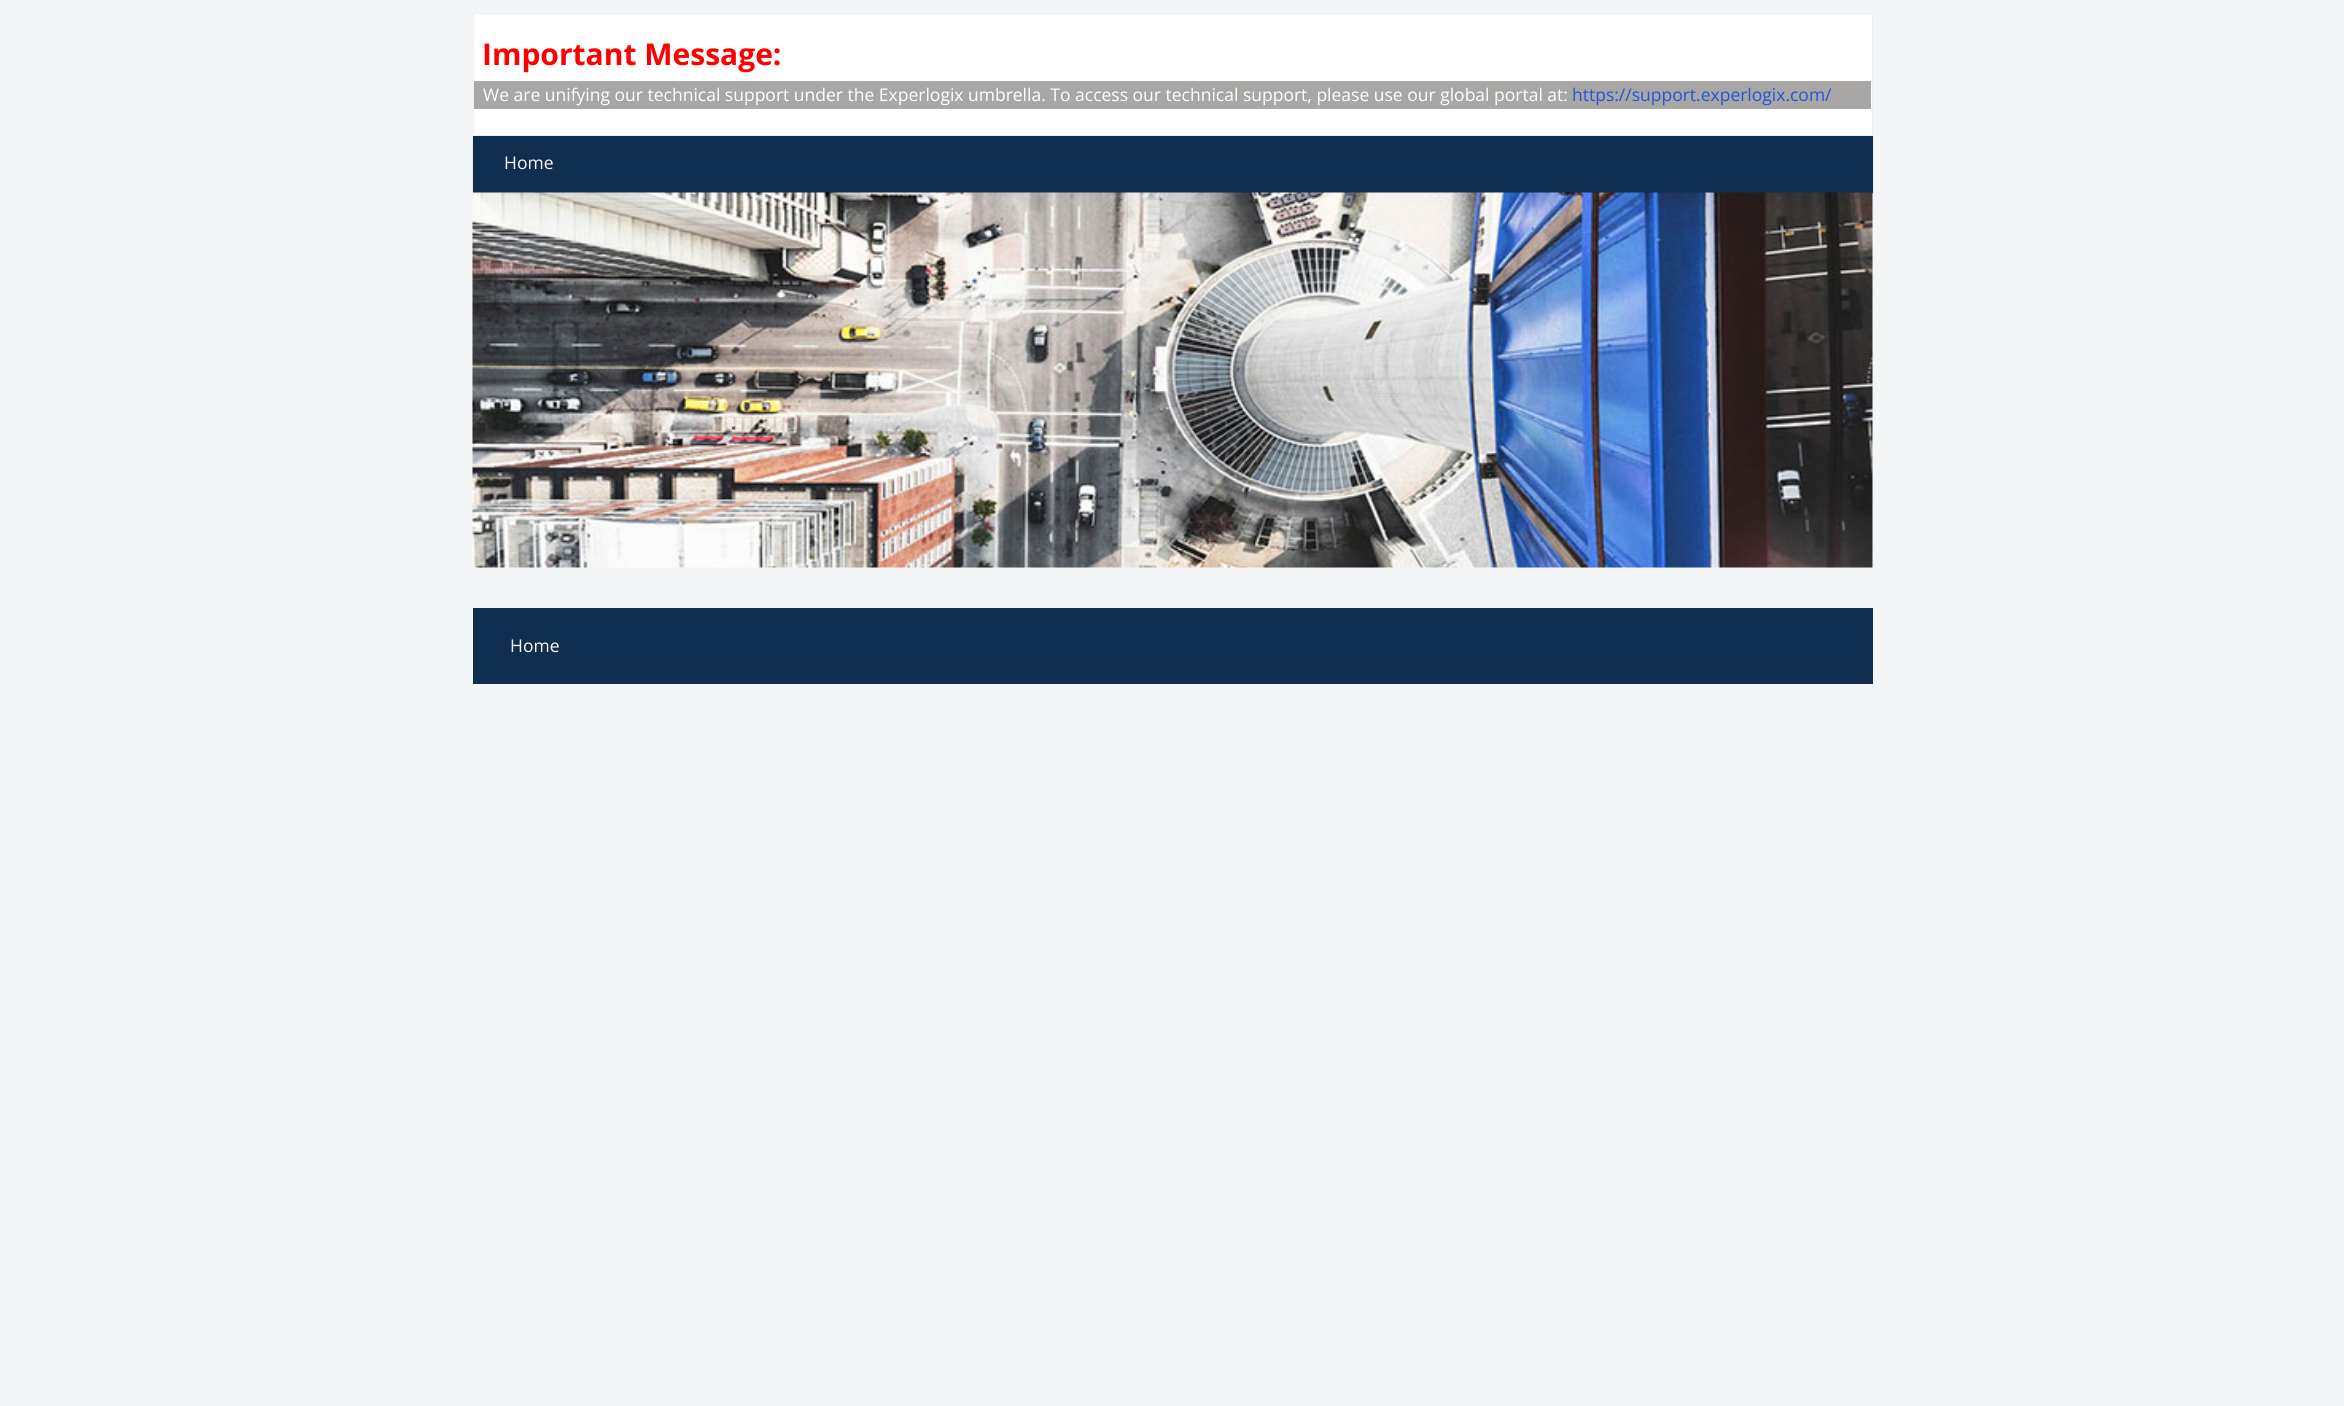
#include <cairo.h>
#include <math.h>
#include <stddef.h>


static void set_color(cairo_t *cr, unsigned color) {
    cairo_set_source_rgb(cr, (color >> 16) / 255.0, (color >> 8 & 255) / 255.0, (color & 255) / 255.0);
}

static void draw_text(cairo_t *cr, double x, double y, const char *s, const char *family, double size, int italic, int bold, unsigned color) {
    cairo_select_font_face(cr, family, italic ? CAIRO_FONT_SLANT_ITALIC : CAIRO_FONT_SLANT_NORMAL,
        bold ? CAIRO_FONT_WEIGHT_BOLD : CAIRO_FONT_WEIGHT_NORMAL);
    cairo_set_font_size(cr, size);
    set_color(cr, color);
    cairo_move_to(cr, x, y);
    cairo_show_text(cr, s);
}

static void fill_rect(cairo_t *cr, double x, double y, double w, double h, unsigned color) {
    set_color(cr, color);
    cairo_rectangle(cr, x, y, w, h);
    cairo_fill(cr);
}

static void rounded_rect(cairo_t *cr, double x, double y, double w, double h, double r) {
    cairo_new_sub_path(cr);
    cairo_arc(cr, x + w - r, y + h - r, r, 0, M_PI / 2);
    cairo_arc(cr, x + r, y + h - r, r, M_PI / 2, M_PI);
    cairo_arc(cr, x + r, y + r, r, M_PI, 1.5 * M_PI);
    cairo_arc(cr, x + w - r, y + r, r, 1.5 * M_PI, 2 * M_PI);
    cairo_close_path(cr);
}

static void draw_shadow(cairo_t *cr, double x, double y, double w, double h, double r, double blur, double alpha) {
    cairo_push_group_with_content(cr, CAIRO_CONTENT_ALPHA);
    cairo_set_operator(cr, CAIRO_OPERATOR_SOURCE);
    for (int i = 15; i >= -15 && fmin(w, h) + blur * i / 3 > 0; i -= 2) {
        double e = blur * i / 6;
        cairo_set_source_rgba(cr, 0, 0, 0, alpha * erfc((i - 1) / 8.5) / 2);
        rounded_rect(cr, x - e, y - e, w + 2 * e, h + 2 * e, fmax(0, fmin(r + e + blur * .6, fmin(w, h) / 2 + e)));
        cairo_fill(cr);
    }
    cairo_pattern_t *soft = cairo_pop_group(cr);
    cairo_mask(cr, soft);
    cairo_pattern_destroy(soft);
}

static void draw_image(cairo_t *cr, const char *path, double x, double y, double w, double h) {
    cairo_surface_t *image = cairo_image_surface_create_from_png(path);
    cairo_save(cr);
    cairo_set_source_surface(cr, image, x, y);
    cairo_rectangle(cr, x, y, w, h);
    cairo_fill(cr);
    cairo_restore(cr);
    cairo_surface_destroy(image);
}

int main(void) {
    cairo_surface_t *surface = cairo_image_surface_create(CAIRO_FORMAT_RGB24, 2344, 1406);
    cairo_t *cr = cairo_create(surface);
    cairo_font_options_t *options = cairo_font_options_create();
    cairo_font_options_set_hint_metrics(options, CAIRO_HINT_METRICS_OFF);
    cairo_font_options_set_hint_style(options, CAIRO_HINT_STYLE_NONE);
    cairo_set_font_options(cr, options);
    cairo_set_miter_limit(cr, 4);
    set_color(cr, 0xF3F5F7);
    cairo_paint(cr);
    set_color(cr, 0xFFFFFF);
    cairo_rectangle(cr, 473.5, 13.5, 1399, 122);
    cairo_fill_preserve(cr);
    set_color(cr, 0xEBEEF0);
    cairo_set_line_width(cr, 1);
    cairo_stroke(cr);
    draw_text(cr, 482, 65, "Important Message:", "Open Sans", 30, 0, 1, 0xFF0000);
    fill_rect(cr, 474, 81, 1397, 28, 0xA8A7A5);
    draw_text(cr, 483, 101, "We are unifying our technical support under the Experlogix umbrella. To access our technical support, please use our global portal at:", "Open Sans", 17.5, 0, 0, 0xFFFFFF);
    draw_text(cr, 1572, 101, "https://support.experlogix.com/", "Open Sans", 17.5, 0, 0, 0x2753D7);
    set_color(cr, 0x3F3F44);
    draw_shadow(cr, 473, 138, 1400, 56, 0, 1, 0.15);
    fill_rect(cr, 473, 136, 1400, 57, 0x102E50);
    draw_text(cr, 504, 169, "Home", "Open Sans", 17.5, 0, 0, 0xFFFFFF);
    draw_image(cr, "assets/img1.png", 472, 192, 1401, 376);
    fill_rect(cr, 473, 608, 1400, 76, 0x102E50);
    draw_text(cr, 510, 652, "Home", "Open Sans", 17.5, 0, 0, 0xFFFFFF);
    cairo_surface_write_to_png(surface, "output.png");
    cairo_font_options_destroy(options);
    cairo_destroy(cr);
    cairo_surface_destroy(surface);
    return 0;
}
